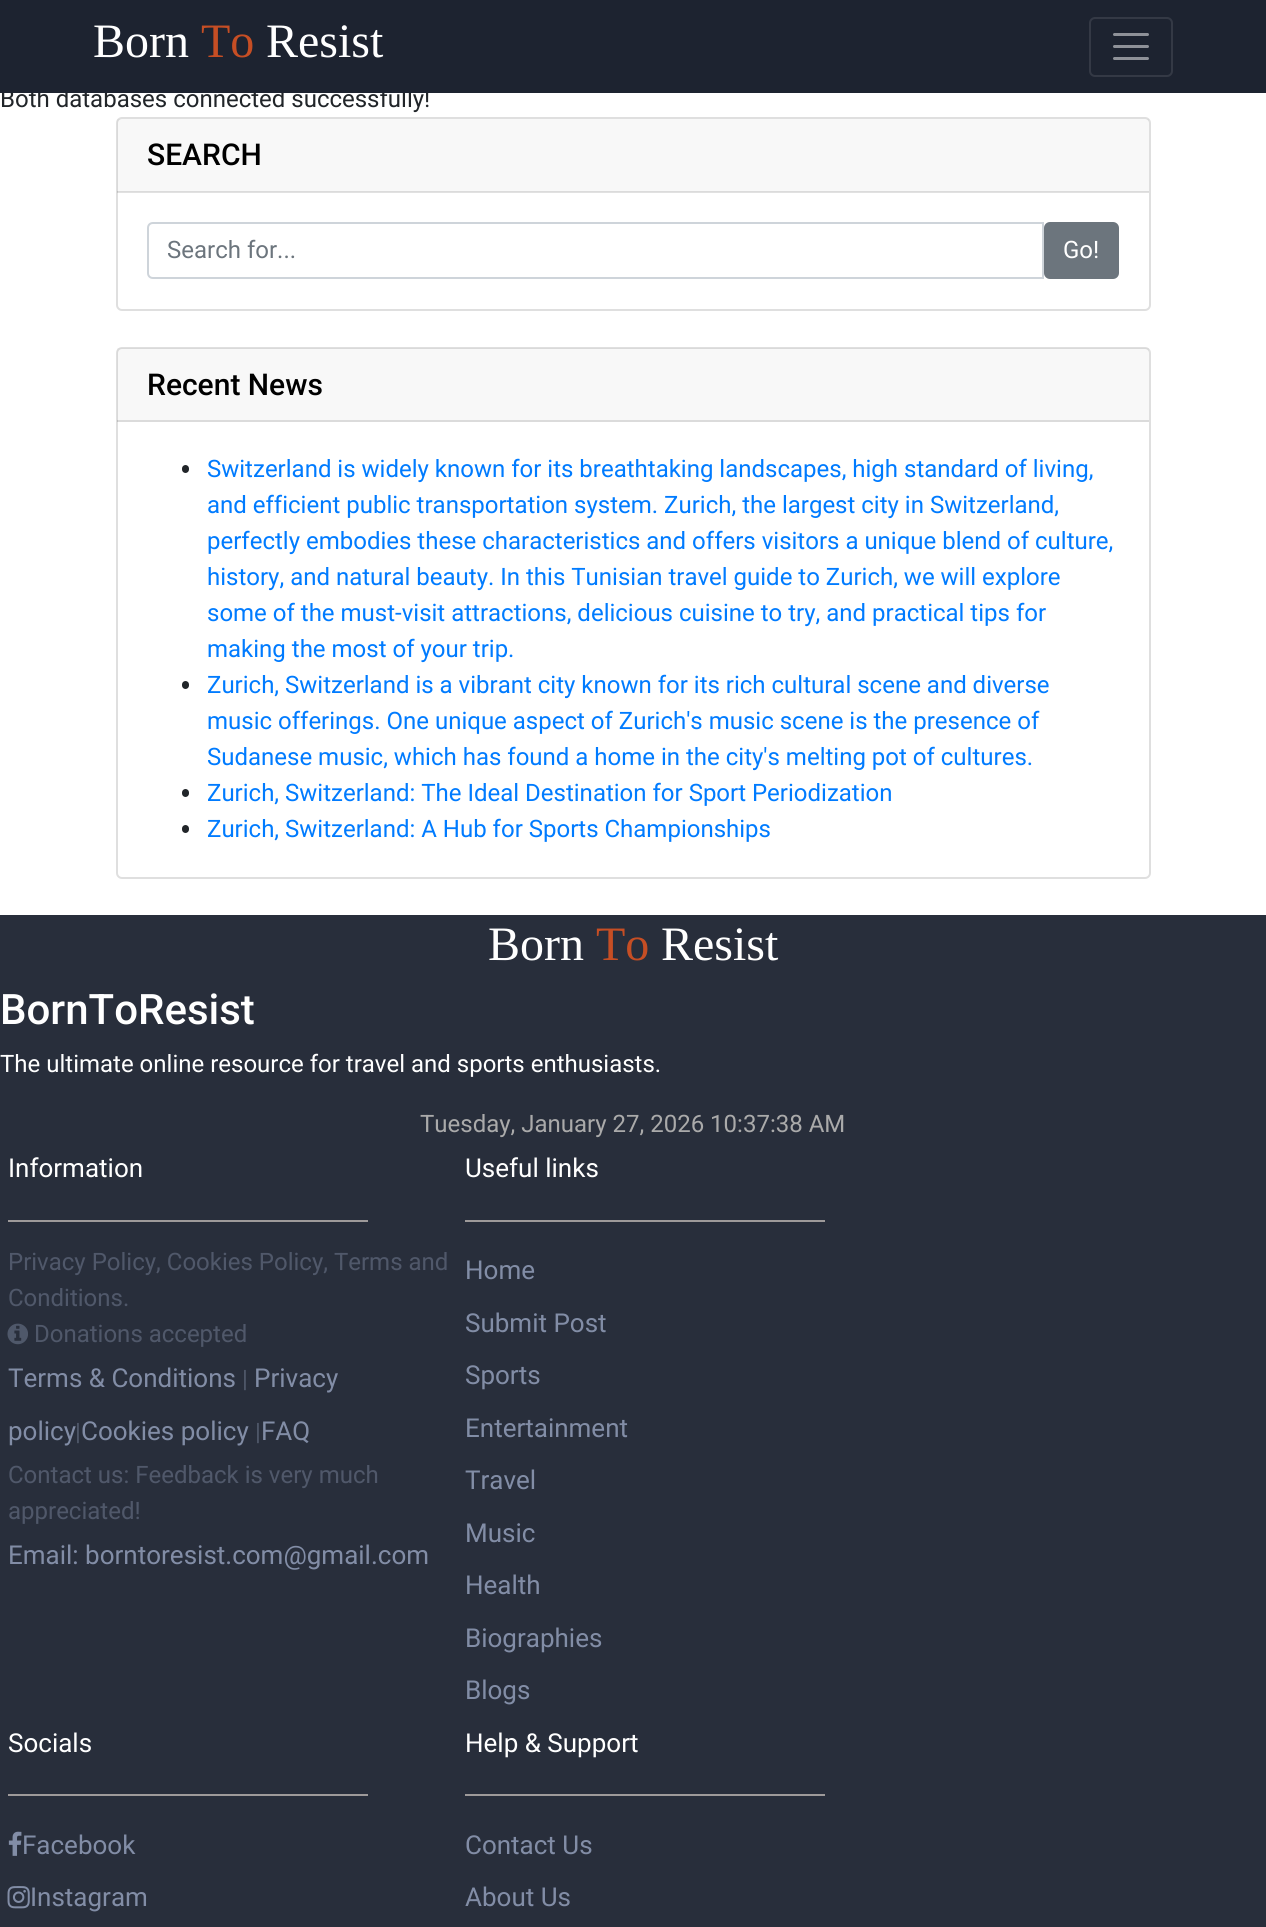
#include <cairo.h>
#include <math.h>
#include <stddef.h>


static void set_color(cairo_t *cr, unsigned color) {
    cairo_set_source_rgb(cr, (color >> 16) / 255.0, (color >> 8 & 255) / 255.0, (color & 255) / 255.0);
}

static void draw_text(cairo_t *cr, double x, double y, const char *s, const char *family, double size, int italic, int bold, unsigned color) {
    cairo_select_font_face(cr, family, italic ? CAIRO_FONT_SLANT_ITALIC : CAIRO_FONT_SLANT_NORMAL,
        bold ? CAIRO_FONT_WEIGHT_BOLD : CAIRO_FONT_WEIGHT_NORMAL);
    cairo_set_font_size(cr, size);
    set_color(cr, color);
    cairo_move_to(cr, x, y);
    cairo_show_text(cr, s);
}

static void fill_rect(cairo_t *cr, double x, double y, double w, double h, unsigned color) {
    set_color(cr, color);
    cairo_rectangle(cr, x, y, w, h);
    cairo_fill(cr);
}

static void rounded_rect(cairo_t *cr, double x, double y, double w, double h, double r) {
    cairo_new_sub_path(cr);
    cairo_arc(cr, x + w - r, y + h - r, r, 0, M_PI / 2);
    cairo_arc(cr, x + r, y + h - r, r, M_PI / 2, M_PI);
    cairo_arc(cr, x + r, y + r, r, M_PI, 1.5 * M_PI);
    cairo_arc(cr, x + w - r, y + r, r, 1.5 * M_PI, 2 * M_PI);
    cairo_close_path(cr);
}

static void draw_image(cairo_t *cr, const char *path, double x, double y, double w, double h) {
    cairo_surface_t *image = cairo_image_surface_create_from_png(path);
    cairo_save(cr);
    cairo_set_source_surface(cr, image, x, y);
    cairo_rectangle(cr, x, y, w, h);
    cairo_fill(cr);
    cairo_restore(cr);
    cairo_surface_destroy(image);
}

int main(void) {
    cairo_surface_t *surface = cairo_image_surface_create(CAIRO_FORMAT_RGB24, 1266, 1927);
    cairo_t *cr = cairo_create(surface);
    cairo_font_options_t *options = cairo_font_options_create();
    cairo_font_options_set_hint_metrics(options, CAIRO_HINT_METRICS_OFF);
    cairo_font_options_set_hint_style(options, CAIRO_HINT_STYLE_NONE);
    cairo_set_font_options(cr, options);
    cairo_set_miter_limit(cr, 4);
    set_color(cr, 0xFFFFFF);
    cairo_paint(cr);
    draw_text(cr, 0, 107, "Both databases connected successfully!", "Roboto", 24, 0, 0, 0x212529);
    fill_rect(cr, 0, 0, 1266, 93, 0x1D2330);
    draw_text(cr, 93, 57, "Born", "Liberation Serif", 48, 0, 0, 0xFFFFFF);
    draw_text(cr, 201, 57, "To", "Liberation Serif", 48, 0, 0, 0xC64E24);
    draw_text(cr, 266, 57, "Resist", "Liberation Serif", 48, 0, 0, 0xFFFFFF);
    rounded_rect(cr, 1090, 18, 82, 58, 5);
    set_color(cr, 0x343945);
    cairo_stroke(cr);
    cairo_new_path(cr);
    cairo_move_to(cr, 1114.5, 34.5);
    cairo_line_to(cr, 1147.5, 34.5);
    cairo_move_to(cr, 1114.5, 46.5);
    cairo_line_to(cr, 1147.5, 46.5);
    cairo_move_to(cr, 1114.5, 58.5);
    cairo_line_to(cr, 1147.5, 58.5);
    set_color(cr, 0x8E9198);
    cairo_set_line_width(cr, 3);
    cairo_set_line_cap(cr, CAIRO_LINE_CAP_ROUND);
    cairo_stroke(cr);
    rounded_rect(cr, 117, 118, 1033, 192, 5);
    set_color(cr, 0xDFDFDF);
    cairo_set_line_width(cr, 2);
    cairo_set_line_cap(cr, CAIRO_LINE_CAP_BUTT);
    cairo_stroke(cr);
    cairo_set_source_rgba(cr, 0, 0, 0, 0.03);
    cairo_rectangle(cr, 117, 119, 1032, 73);
    cairo_fill(cr);
    cairo_set_source_rgba(cr, 0, 0, 0, 0.12);
    cairo_rectangle(cr, 117, 191, 1032, 2);
    cairo_fill(cr);
    draw_text(cr, 147, 165, "SEARCH", "Roboto Medium", 30, 0, 0, 0x000000);
    cairo_new_path(cr);
    cairo_move_to(cr, 153, 223);
    cairo_line_to(cr, 1043, 223);
    cairo_line_to(cr, 1043, 278);
    cairo_line_to(cr, 153, 278);
    cairo_curve_to(cr, 150, 278, 148, 276, 148, 273);
    cairo_line_to(cr, 148, 228);
    cairo_curve_to(cr, 148, 225, 150, 223, 153, 223);
    cairo_close_path(cr);
    set_color(cr, 0xCED4DA);
    cairo_stroke(cr);
    draw_text(cr, 167, 258, "Search for...", "Roboto", 24, 0, 0, 0x6C757D);
    rounded_rect(cr, 1045, 223, 73, 55, 5);
    cairo_fill_preserve(cr);
    cairo_stroke(cr);
    draw_text(cr, 1063, 258, "Go!", "Roboto", 24, 0, 0, 0xFFFFFF);
    rounded_rect(cr, 117, 348, 1033, 530, 5);
    set_color(cr, 0xDFDFDF);
    cairo_stroke(cr);
    cairo_set_source_rgba(cr, 0, 0, 0, 0.03);
    cairo_rectangle(cr, 117, 348, 1032, 74);
    cairo_fill(cr);
    cairo_set_source_rgba(cr, 0, 0, 0, 0.12);
    cairo_rectangle(cr, 117, 420, 1032, 2);
    cairo_fill(cr);
    draw_text(cr, 147, 395, "Recent News", "Roboto Medium", 30, 0, 0, 0x000000);
    set_color(cr, 0x212529);
    rounded_rect(cr, 182, 465, 7, 8, 3.5);
    cairo_fill(cr);
    draw_text(cr, 207, 477, "Switzerland is widely known for its breathtaking landscapes, high standard of living,", "Roboto", 24, 0, 0, 0x007BFF);
    draw_text(cr, 207, 513, "and efficient public transportation system. Zurich, the largest city in Switzerland,", "Roboto", 24, 0, 0, 0x007BFF);
    draw_text(cr, 207, 549, "perfectly embodies these characteristics and offers visitors a unique blend of culture,", "Roboto", 24, 0, 0, 0x007BFF);
    draw_text(cr, 207, 585, "history, and natural beauty. In this Tunisian travel guide to Zurich, we will explore", "Roboto", 24, 0, 0, 0x007BFF);
    draw_text(cr, 207, 621, "some of the must-visit attractions, delicious cuisine to try, and practical tips for", "Roboto", 24, 0, 0, 0x007BFF);
    draw_text(cr, 207, 657, "making the most of your trip.", "Roboto", 24, 0, 0, 0x007BFF);
    set_color(cr, 0x212529);
    rounded_rect(cr, 182, 681, 7, 8, 3.5);
    cairo_fill(cr);
    draw_text(cr, 207, 693, "Zurich, Switzerland is a vibrant city known for its rich cultural scene and diverse", "Roboto", 24, 0, 0, 0x007BFF);
    draw_text(cr, 207, 729, "music offerings. One unique aspect of Zurich's music scene is the presence of", "Roboto", 24, 0, 0, 0x007BFF);
    draw_text(cr, 207, 765, "Sudanese music, which has found a home in the city's melting pot of cultures.", "Roboto", 24, 0, 0, 0x007BFF);
    set_color(cr, 0x212529);
    rounded_rect(cr, 182, 789, 7, 8, 3.5);
    cairo_fill(cr);
    draw_text(cr, 207, 801, "Zurich, Switzerland: The Ideal Destination for Sport Periodization", "Roboto", 24, 0, 0, 0x007BFF);
    set_color(cr, 0x212529);
    rounded_rect(cr, 182, 825, 7, 8, 3.5);
    cairo_fill(cr);
    draw_text(cr, 207, 837, "Zurich, Switzerland: A Hub for Sports Championships", "Roboto", 24, 0, 0, 0x007BFF);
    fill_rect(cr, 0, 915, 1266, 1012, 0x282E3B);
    draw_text(cr, 488, 960, "Born", "Liberation Serif", 48, 0, 0, 0xFFFFFF);
    draw_text(cr, 596, 960, "To", "Liberation Serif", 48, 0, 0, 0xC64E24);
    draw_text(cr, 661, 960, "Resist", "Liberation Serif", 48, 0, 0, 0xFFFFFF);
    draw_text(cr, 0, 1024, "BornToResist", "Roboto Medium", 42, 0, 0, 0xFFFFFF);
    draw_text(cr, 0, 1072, "The ultimate online resource for travel and sports enthusiasts.", "Roboto", 24, 0, 0, 0xFFFFFF);
    draw_text(cr, 420, 1132, "Tuesday, January 27, 2026 10:37:38 AM", "Roboto", 24, 0, 0, 0xAAAAAA);
    draw_text(cr, 8, 1177, "Information", "Roboto", 26, 0, 0, 0xFFFFFF);
    fill_rect(cr, 8, 1220, 360, 2, 0x9E9A9A);
    draw_text(cr, 8, 1270, "Privacy Policy, Cookies Policy, Terms and", "Roboto", 24, 0, 0, 0x50586A);
    draw_text(cr, 8, 1306, "Conditions.", "Roboto", 24, 0, 0, 0x50586A);
    draw_image(cr, "assets/img1.png", 7, 1323, 21, 22);
    draw_text(cr, 34, 1342, "Donations accepted", "Roboto", 24, 0, 0, 0x50586A);
    draw_text(cr, 8, 1387, "Terms & Conditions", "Roboto", 26, 0, 0, 0x828DA6);
    draw_text(cr, 242, 1387, "|", "Roboto", 24, 0, 0, 0x50586A);
    draw_text(cr, 254, 1387, "Privacy", "Roboto", 26, 0, 0, 0x828DA6);
    draw_text(cr, 8, 1440, "policy", "Roboto", 26, 0, 0, 0x828DA6);
    draw_text(cr, 75, 1440, "|", "Roboto", 24, 0, 0, 0x50586A);
    draw_text(cr, 81, 1440, "Cookies policy", "Roboto", 26, 0, 0, 0x828DA6);
    draw_text(cr, 255, 1440, "|", "Roboto", 24, 0, 0, 0x50586A);
    draw_text(cr, 261, 1440, "FAQ", "Roboto", 26, 0, 0, 0x828DA6);
    draw_text(cr, 8, 1483, "Contact us: Feedback is very much", "Roboto", 24, 0, 0, 0x50586A);
    draw_text(cr, 8, 1519, "appreciated!", "Roboto", 24, 0, 0, 0x50586A);
    draw_text(cr, 8, 1564, "Email: borntoresist.com@gmail.com", "Roboto", 26, 0, 0, 0x828DA6);
    draw_text(cr, 465, 1177, "Useful links", "Roboto", 26, 0, 0, 0xFFFFFF);
    fill_rect(cr, 465, 1220, 360, 2, 0x9E9A9A);
    draw_text(cr, 465, 1279, "Home", "Roboto", 26, 0, 0, 0x828DA6);
    draw_text(cr, 465, 1332, "Submit Post", "Roboto", 26, 0, 0, 0x828DA6);
    draw_text(cr, 465, 1384, "Sports", "Roboto", 26, 0, 0, 0x828DA6);
    draw_text(cr, 465, 1437, "Entertainment", "Roboto", 26, 0, 0, 0x828DA6);
    draw_text(cr, 465, 1489, "Travel", "Roboto", 26, 0, 0, 0x828DA6);
    draw_text(cr, 465, 1542, "Music", "Roboto", 26, 0, 0, 0x828DA6);
    draw_text(cr, 465, 1594, "Health", "Roboto", 26, 0, 0, 0x828DA6);
    draw_text(cr, 465, 1647, "Biographies", "Roboto", 26, 0, 0, 0x828DA6);
    draw_text(cr, 465, 1699, "Blogs", "Roboto", 26, 0, 0, 0x828DA6);
    draw_text(cr, 8, 1752, "Socials", "Roboto", 26, 0, 0, 0xFFFFFF);
    fill_rect(cr, 8, 1794, 360, 2, 0x9E9A9A);
    draw_image(cr, "assets/img2.png", 8, 1831, 14, 25);
    draw_text(cr, 22, 1854, "Facebook", "Roboto", 26, 0, 0, 0x828DA6);
    draw_image(cr, "assets/img3.png", 7, 1886, 23, 23);
    draw_text(cr, 30, 1906, "Instagram", "Roboto", 26, 0, 0, 0x828DA6);
    draw_text(cr, 465, 1752, "Help & Support", "Roboto", 26, 0, 0, 0xFFFFFF);
    fill_rect(cr, 465, 1794, 360, 2, 0x9E9A9A);
    draw_text(cr, 465, 1854, "Contact Us", "Roboto", 26, 0, 0, 0x828DA6);
    draw_text(cr, 465, 1906, "About Us", "Roboto", 26, 0, 0, 0x828DA6);
    cairo_surface_write_to_png(surface, "output.png");
    cairo_font_options_destroy(options);
    cairo_destroy(cr);
    cairo_surface_destroy(surface);
    return 0;
}
